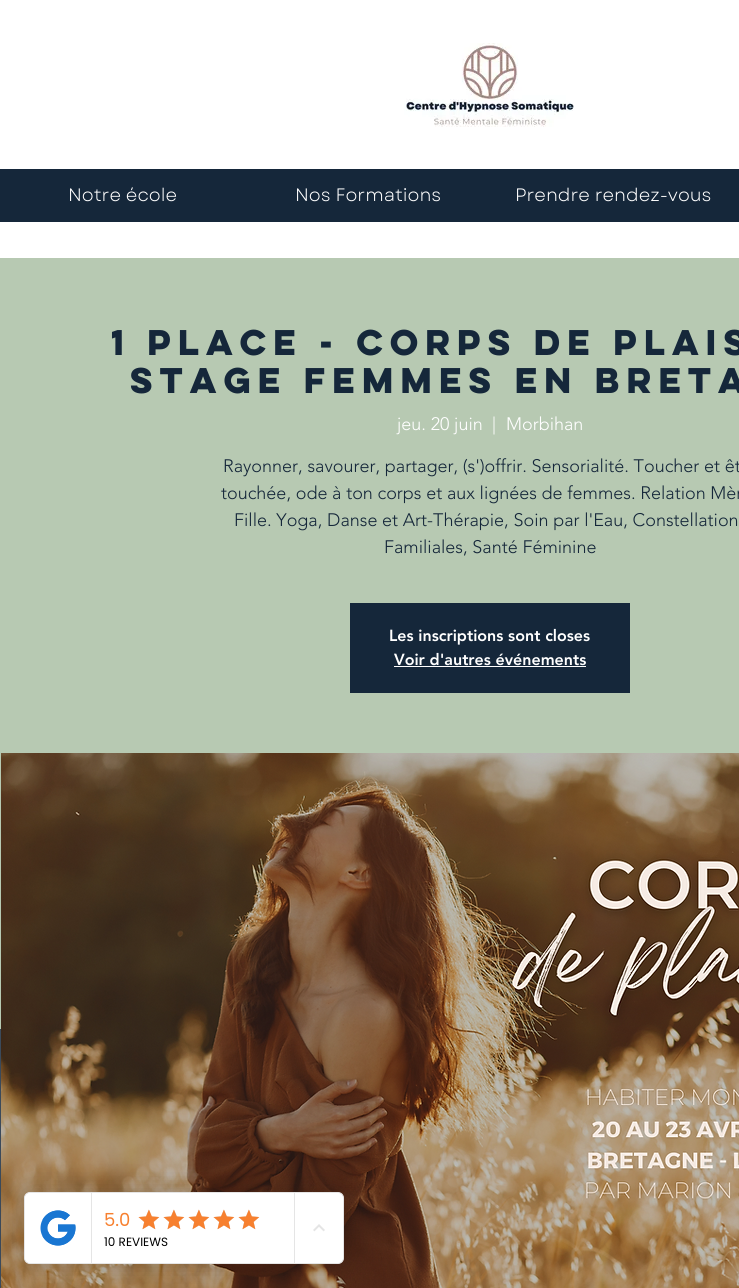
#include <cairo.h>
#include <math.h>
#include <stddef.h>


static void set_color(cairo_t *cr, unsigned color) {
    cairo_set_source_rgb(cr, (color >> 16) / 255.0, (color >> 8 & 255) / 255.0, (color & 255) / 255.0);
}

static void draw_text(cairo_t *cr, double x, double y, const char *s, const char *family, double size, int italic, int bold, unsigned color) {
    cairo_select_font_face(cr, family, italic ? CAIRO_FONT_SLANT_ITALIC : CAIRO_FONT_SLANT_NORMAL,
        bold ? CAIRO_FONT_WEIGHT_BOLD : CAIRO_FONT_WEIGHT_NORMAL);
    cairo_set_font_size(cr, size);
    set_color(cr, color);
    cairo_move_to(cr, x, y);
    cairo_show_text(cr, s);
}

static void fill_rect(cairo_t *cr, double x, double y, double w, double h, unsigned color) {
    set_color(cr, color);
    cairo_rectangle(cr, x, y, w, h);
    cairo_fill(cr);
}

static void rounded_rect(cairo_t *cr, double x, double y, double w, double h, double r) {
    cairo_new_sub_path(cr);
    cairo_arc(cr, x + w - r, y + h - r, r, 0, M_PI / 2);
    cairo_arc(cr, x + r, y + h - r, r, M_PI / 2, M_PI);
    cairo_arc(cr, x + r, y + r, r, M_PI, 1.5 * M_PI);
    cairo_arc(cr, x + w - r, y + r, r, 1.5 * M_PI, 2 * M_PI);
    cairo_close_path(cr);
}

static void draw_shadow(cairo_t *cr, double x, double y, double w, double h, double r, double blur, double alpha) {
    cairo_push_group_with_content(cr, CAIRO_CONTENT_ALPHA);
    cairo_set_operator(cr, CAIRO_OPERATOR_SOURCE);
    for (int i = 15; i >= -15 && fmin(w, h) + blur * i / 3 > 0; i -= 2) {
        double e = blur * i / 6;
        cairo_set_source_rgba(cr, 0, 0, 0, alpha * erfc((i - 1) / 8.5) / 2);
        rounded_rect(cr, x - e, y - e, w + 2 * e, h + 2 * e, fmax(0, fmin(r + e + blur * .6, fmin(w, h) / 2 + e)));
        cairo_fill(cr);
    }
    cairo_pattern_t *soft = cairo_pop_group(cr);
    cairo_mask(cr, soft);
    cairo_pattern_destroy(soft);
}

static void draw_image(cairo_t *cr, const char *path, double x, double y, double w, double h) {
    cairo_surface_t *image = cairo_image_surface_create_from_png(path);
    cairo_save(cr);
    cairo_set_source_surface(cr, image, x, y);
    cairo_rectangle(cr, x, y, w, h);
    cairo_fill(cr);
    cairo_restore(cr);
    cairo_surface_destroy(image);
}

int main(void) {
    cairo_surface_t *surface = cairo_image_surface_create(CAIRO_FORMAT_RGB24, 739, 1288);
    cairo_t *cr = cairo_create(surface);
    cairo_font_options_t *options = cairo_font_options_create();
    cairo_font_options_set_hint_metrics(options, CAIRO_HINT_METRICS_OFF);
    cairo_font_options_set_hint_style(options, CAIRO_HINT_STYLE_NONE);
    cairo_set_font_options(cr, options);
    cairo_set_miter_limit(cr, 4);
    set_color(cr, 0xFFFFFF);
    cairo_paint(cr);
    draw_image(cr, "assets/img1.png", 404, 43, 170, 84);
    fill_rect(cr, 0, 169, 739, 53, 0x15273A);
    draw_text(cr, 68, 201, "Notre école", "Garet", 18, 0, 0, 0xFFFFFF);
    draw_text(cr, 295, 201, "Nos Formations", "Garet", 18, 0, 0, 0xFFFFFF);
    draw_text(cr, 515, 201, "Prendre rendez-vous", "Garet", 18, 0, 0, 0xFFFFFF);
    fill_rect(cr, 0, 258, 739, 771, 0xB7C9B2);
    draw_text(cr, 111, 355, "1 PLACE - Corps de Plais", "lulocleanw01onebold", 32, 0, 1, 0x15273A);
    draw_text(cr, 130, 393, "Stage Femmes en Breta", "lulocleanw01onebold", 32, 0, 1, 0x15273A);
    draw_text(cr, 397, 430, "jeu. 20 juin", "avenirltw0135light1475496 Light", 18, 0, 0, 0xFFFFFF);
    draw_text(cr, 492, 430, "|", "avenirltw0135light1475496 Light", 18, 0, 0, 0xFFFFFF);
    draw_text(cr, 506, 430, "Morbihan", "avenirltw0135light1475496 Light", 18, 0, 0, 0xFFFFFF);
    draw_text(cr, 223, 472, "Rayonner, savourer, partager, (s')offrir. Sensorialité. Toucher et êt", "avenirltw0135light1475496 Light", 18, 0, 0, 0x15273A);
    draw_text(cr, 221, 499, "touchée, ode à ton corps et aux lignées de femmes. Relation Mèr", "avenirltw0135light1475496 Light", 18, 0, 0, 0x15273A);
    draw_text(cr, 234, 526, "Fille. Yoga, Danse et Art-Thérapie, Soin par l'Eau, Constellation", "avenirltw0135light1475496 Light", 18, 0, 0, 0x15273A);
    draw_text(cr, 384, 553, "Familiales, Santé Féminine", "avenirltw0135light1475496 Light", 18, 0, 0, 0x15273A);
    fill_rect(cr, 350, 603, 280, 90, 0x15273A);
    draw_text(cr, 389, 641, "Les inscriptions sont closes", "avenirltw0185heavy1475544 Black", 16, 0, 0, 0xFFFFFF);
    draw_text(cr, 394, 665, "Voir d'autres événements", "avenirltw0185heavy1475544 Black", 16, 0, 0, 0xFFFFFF);
    fill_rect(cr, 394, 666, 192, 1, 0xFFFFFF);
    draw_image(cr, "assets/img2.png", 1, 753, 738, 535);
    fill_rect(cr, 0, 1029, 1, 259, 0x3B4A5A);
    set_color(cr, 0x000000);
    draw_shadow(cr, 18, 1186, 332, 84, 12, 12, 0.12);
    set_color(cr, 0xFFFFFF);
    rounded_rect(cr, 24.5, 1192.5, 319, 71, 5.5);
    cairo_fill_preserve(cr);
    set_color(cr, 0xE5E5E5);
    cairo_set_line_width(cr, 1);
    cairo_stroke(cr);
    set_color(cr, 0xFFFFFF);
    cairo_new_path(cr);
    cairo_move_to(cr, 31, 1193);
    cairo_line_to(cr, 92, 1193);
    cairo_line_to(cr, 92, 1263);
    cairo_line_to(cr, 31, 1263);
    cairo_curve_to(cr, 27.5, 1263, 25, 1260.5, 25, 1257);
    cairo_line_to(cr, 25, 1199);
    cairo_curve_to(cr, 25, 1195.5, 27.5, 1193, 31, 1193);
    cairo_close_path(cr);
    cairo_fill(cr);
    fill_rect(cr, 91, 1193, 1, 70, 0xE5E5E5);
    draw_image(cr, "assets/img3.png", 40, 1210, 36, 36);
    fill_rect(cr, 294, 1193, 1, 70, 0xE5E5E5);
    draw_text(cr, 104, 1226, "5.0", "Poppins", 18, 0, 0, 0xF7802F);
    draw_image(cr, "assets/img5.png", 138, 1210, 21, 19);
    draw_image(cr, "assets/img4.png", 138, 1209, 22, 21);
    draw_image(cr, "assets/img5.png", 163, 1210, 21, 19);
    draw_image(cr, "assets/img4.png", 163, 1209, 22, 21);
    draw_image(cr, "assets/img5.png", 188, 1210, 21, 19);
    draw_image(cr, "assets/img4.png", 188, 1209, 22, 21);
    draw_image(cr, "assets/img5.png", 213, 1210, 21, 19);
    draw_image(cr, "assets/img4.png", 213, 1209, 22, 21);
    draw_image(cr, "assets/img5.png", 238, 1210, 21, 19);
    draw_image(cr, "assets/img4.png", 238, 1209, 22, 21);
    draw_text(cr, 104, 1246, "10 REVIEWS", "Poppins", 12, 0, 0, 0x000000);
    draw_image(cr, "assets/img6.png", 313, 1224, 12, 8);
    cairo_surface_write_to_png(surface, "output.png");
    cairo_font_options_destroy(options);
    cairo_destroy(cr);
    cairo_surface_destroy(surface);
    return 0;
}
